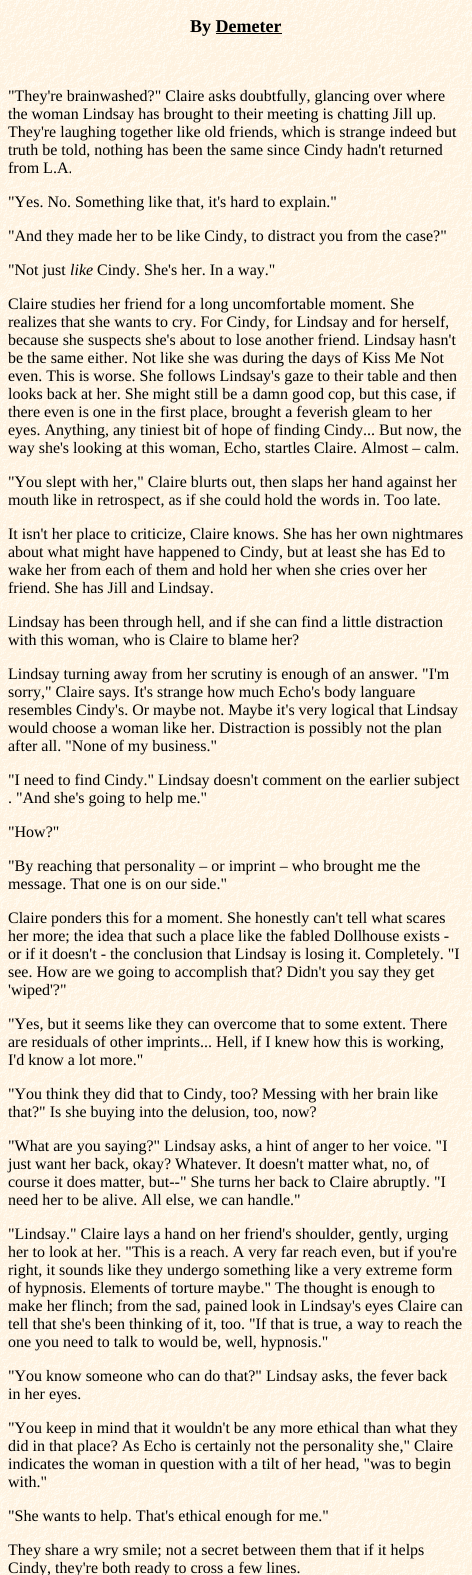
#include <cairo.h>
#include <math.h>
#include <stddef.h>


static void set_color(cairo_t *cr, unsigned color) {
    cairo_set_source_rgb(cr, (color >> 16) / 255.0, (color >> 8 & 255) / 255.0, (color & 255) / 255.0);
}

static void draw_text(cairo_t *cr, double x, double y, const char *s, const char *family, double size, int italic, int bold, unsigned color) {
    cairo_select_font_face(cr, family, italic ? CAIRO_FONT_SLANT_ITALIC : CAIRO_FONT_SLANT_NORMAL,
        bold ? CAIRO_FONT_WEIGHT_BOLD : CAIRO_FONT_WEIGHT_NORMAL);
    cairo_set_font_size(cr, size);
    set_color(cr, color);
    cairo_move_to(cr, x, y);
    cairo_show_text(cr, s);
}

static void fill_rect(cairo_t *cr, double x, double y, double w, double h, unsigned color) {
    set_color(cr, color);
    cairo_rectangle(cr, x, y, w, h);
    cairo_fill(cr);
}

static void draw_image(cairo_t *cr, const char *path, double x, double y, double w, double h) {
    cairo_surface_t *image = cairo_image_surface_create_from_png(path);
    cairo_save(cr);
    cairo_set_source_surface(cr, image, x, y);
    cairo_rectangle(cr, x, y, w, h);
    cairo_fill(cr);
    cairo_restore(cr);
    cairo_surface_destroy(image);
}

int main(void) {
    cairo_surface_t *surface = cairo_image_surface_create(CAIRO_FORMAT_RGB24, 472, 1575);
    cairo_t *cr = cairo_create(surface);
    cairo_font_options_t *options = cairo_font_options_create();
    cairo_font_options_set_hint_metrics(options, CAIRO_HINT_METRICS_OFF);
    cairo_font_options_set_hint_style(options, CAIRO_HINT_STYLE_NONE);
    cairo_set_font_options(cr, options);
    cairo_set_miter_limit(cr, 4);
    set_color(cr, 0xFFFFFF);
    cairo_paint(cr);
    draw_image(cr, "assets/img1.png", 0, 0, 472, 1575);
    draw_text(cr, 190, 32, "By Demeter", "Liberation Serif", 18, 0, 1, 0x000000);
    fill_rect(cr, 216, 33, 66, 1, 0x000000);
    draw_text(cr, 8, 101, "\"They're brainwashed?\" Claire asks doubtfully, glancing over where", "Liberation Serif", 16, 0, 0, 0x000000);
    draw_text(cr, 8, 119, "the woman Lindsay has brought to their meeting is chatting Jill up.", "Liberation Serif", 16, 0, 0, 0x000000);
    draw_text(cr, 8, 137, "They're laughing together like old friends, which is strange indeed but", "Liberation Serif", 16, 0, 0, 0x000000);
    draw_text(cr, 8, 155, "truth be told, nothing has been the same since Cindy hadn't returned", "Liberation Serif", 16, 0, 0, 0x000000);
    draw_text(cr, 8, 173, "from L.A.", "Liberation Serif", 16, 0, 0, 0x000000);
    draw_text(cr, 8, 207, "\"Yes. No. Something like that, it's hard to explain.\"", "Liberation Serif", 16, 0, 0, 0x000000);
    draw_text(cr, 8, 241, "\"And they made her to be like Cindy, to distract you from the case?\"", "Liberation Serif", 16, 0, 0, 0x000000);
    draw_text(cr, 8, 275, "\"Not just", "Liberation Serif", 16, 0, 0, 0x000000);
    draw_text(cr, 70, 275, "like", "Liberation Serif", 16, 1, 0, 0x000000);
    draw_text(cr, 97, 275, "Cindy. She's her. In a way.\"", "Liberation Serif", 16, 0, 0, 0x000000);
    draw_text(cr, 8, 309, "Claire studies her friend for a long uncomfortable moment. She", "Liberation Serif", 16, 0, 0, 0x000000);
    draw_text(cr, 8, 327, "realizes that she wants to cry. For Cindy, for Lindsay and for herself,", "Liberation Serif", 16, 0, 0, 0x000000);
    draw_text(cr, 8, 345, "because she suspects she's about to lose another friend. Lindsay hasn't", "Liberation Serif", 16, 0, 0, 0x000000);
    draw_text(cr, 8, 363, "be the same either. Not like she was during the days of Kiss Me Not", "Liberation Serif", 16, 0, 0, 0x000000);
    draw_text(cr, 8, 381, "even. This is worse. She follows Lindsay's gaze to their table and then", "Liberation Serif", 16, 0, 0, 0x000000);
    draw_text(cr, 8, 399, "looks back at her. She might still be a damn good cop, but this case, if", "Liberation Serif", 16, 0, 0, 0x000000);
    draw_text(cr, 8, 417, "there even is one in the first place, brought a feverish gleam to her", "Liberation Serif", 16, 0, 0, 0x000000);
    draw_text(cr, 8, 435, "eyes. Anything, any tiniest bit of hope of finding Cindy... But now, the", "Liberation Serif", 16, 0, 0, 0x000000);
    draw_text(cr, 8, 453, "way she's looking at this woman, Echo, startles Claire. Almost – calm.", "Liberation Serif", 16, 0, 0, 0x000000);
    draw_text(cr, 8, 487, "\"You slept with her,\" Claire blurts out, then slaps her hand against her", "Liberation Serif", 16, 0, 0, 0x000000);
    draw_text(cr, 8, 505, "mouth like in retrospect, as if she could hold the words in. Too late.", "Liberation Serif", 16, 0, 0, 0x000000);
    draw_text(cr, 8, 539, "It isn't her place to criticize, Claire knows. She has her own nightmares", "Liberation Serif", 16, 0, 0, 0x000000);
    draw_text(cr, 8, 557, "about what might have happened to Cindy, but at least she has Ed to", "Liberation Serif", 16, 0, 0, 0x000000);
    draw_text(cr, 8, 575, "wake her from each of them and hold her when she cries over her", "Liberation Serif", 16, 0, 0, 0x000000);
    draw_text(cr, 8, 593, "friend. She has Jill and Lindsay.", "Liberation Serif", 16, 0, 0, 0x000000);
    draw_text(cr, 8, 627, "Lindsay has been through hell, and if she can find a little distraction", "Liberation Serif", 16, 0, 0, 0x000000);
    draw_text(cr, 8, 645, "with this woman, who is Claire to blame her?", "Liberation Serif", 16, 0, 0, 0x000000);
    draw_text(cr, 8, 679, "Lindsay turning away from her scrutiny is enough of an answer. \"I'm", "Liberation Serif", 16, 0, 0, 0x000000);
    draw_text(cr, 8, 697, "sorry,\" Claire says. It's strange how much Echo's body languare", "Liberation Serif", 16, 0, 0, 0x000000);
    draw_text(cr, 8, 715, "resembles Cindy's. Or maybe not. Maybe it's very logical that Lindsay", "Liberation Serif", 16, 0, 0, 0x000000);
    draw_text(cr, 8, 733, "would choose a woman like her. Distraction is possibly not the plan", "Liberation Serif", 16, 0, 0, 0x000000);
    draw_text(cr, 8, 751, "after all. \"None of my business.\"", "Liberation Serif", 16, 0, 0, 0x000000);
    draw_text(cr, 8, 785, "\"I need to find Cindy.\" Lindsay doesn't comment on the earlier subject", "Liberation Serif", 16, 0, 0, 0x000000);
    draw_text(cr, 8, 803, ". \"And she's going to help me.\"", "Liberation Serif", 16, 0, 0, 0x000000);
    draw_text(cr, 8, 837, "\"How?\"", "Liberation Serif", 16, 0, 0, 0x000000);
    draw_text(cr, 8, 871, "\"By reaching that personality – or imprint – who brought me the", "Liberation Serif", 16, 0, 0, 0x000000);
    draw_text(cr, 8, 889, "message. That one is on our side.\"", "Liberation Serif", 16, 0, 0, 0x000000);
    draw_text(cr, 8, 923, "Claire ponders this for a moment. She honestly can't tell what scares", "Liberation Serif", 16, 0, 0, 0x000000);
    draw_text(cr, 8, 941, "her more; the idea that such a place like the fabled Dollhouse exists -", "Liberation Serif", 16, 0, 0, 0x000000);
    draw_text(cr, 8, 959, "or if it doesn't - the conclusion that Lindsay is losing it. Completely. \"I", "Liberation Serif", 16, 0, 0, 0x000000);
    draw_text(cr, 8, 977, "see. How are we going to accomplish that? Didn't you say they get", "Liberation Serif", 16, 0, 0, 0x000000);
    draw_text(cr, 8, 995, "'wiped'?\"", "Liberation Serif", 16, 0, 0, 0x000000);
    draw_text(cr, 8, 1029, "\"Yes, but it seems like they can overcome that to some extent. There", "Liberation Serif", 16, 0, 0, 0x000000);
    draw_text(cr, 8, 1047, "are residuals of other imprints... Hell, if I knew how this is working,", "Liberation Serif", 16, 0, 0, 0x000000);
    draw_text(cr, 8, 1065, "I'd know a lot more.\"", "Liberation Serif", 16, 0, 0, 0x000000);
    draw_text(cr, 8, 1099, "\"You think they did that to Cindy, too? Messing with her brain like", "Liberation Serif", 16, 0, 0, 0x000000);
    draw_text(cr, 8, 1117, "that?\" Is she buying into the delusion, too, now?", "Liberation Serif", 16, 0, 0, 0x000000);
    draw_text(cr, 8, 1151, "\"What are you saying?\" Lindsay asks, a hint of anger to her voice. \"I", "Liberation Serif", 16, 0, 0, 0x000000);
    draw_text(cr, 8, 1169, "just want her back, okay? Whatever. It doesn't matter what, no, of", "Liberation Serif", 16, 0, 0, 0x000000);
    draw_text(cr, 8, 1187, "course it does matter, but--\" She turns her back to Claire abruptly. \"I", "Liberation Serif", 16, 0, 0, 0x000000);
    draw_text(cr, 8, 1205, "need her to be alive. All else, we can handle.\"", "Liberation Serif", 16, 0, 0, 0x000000);
    draw_text(cr, 8, 1239, "\"Lindsay.\" Claire lays a hand on her friend's shoulder, gently, urging", "Liberation Serif", 16, 0, 0, 0x000000);
    draw_text(cr, 8, 1257, "her to look at her. \"This is a reach. A very far reach even, but if you're", "Liberation Serif", 16, 0, 0, 0x000000);
    draw_text(cr, 8, 1275, "right, it sounds like they undergo something like a very extreme form", "Liberation Serif", 16, 0, 0, 0x000000);
    draw_text(cr, 8, 1293, "of hypnosis. Elements of torture maybe.\" The thought is enough to", "Liberation Serif", 16, 0, 0, 0x000000);
    draw_text(cr, 8, 1311, "make her flinch; from the sad, pained look in Lindsay's eyes Claire can", "Liberation Serif", 16, 0, 0, 0x000000);
    draw_text(cr, 8, 1329, "tell that she's been thinking of it, too. \"If that is true, a way to reach the", "Liberation Serif", 16, 0, 0, 0x000000);
    draw_text(cr, 8, 1347, "one you need to talk to would be, well, hypnosis.\"", "Liberation Serif", 16, 0, 0, 0x000000);
    draw_text(cr, 8, 1381, "\"You know someone who can do that?\" Lindsay asks, the fever back", "Liberation Serif", 16, 0, 0, 0x000000);
    draw_text(cr, 8, 1399, "in her eyes.", "Liberation Serif", 16, 0, 0, 0x000000);
    draw_text(cr, 8, 1433, "\"You keep in mind that it wouldn't be any more ethical than what they", "Liberation Serif", 16, 0, 0, 0x000000);
    draw_text(cr, 8, 1451, "did in that place? As Echo is certainly not the personality she,\" Claire", "Liberation Serif", 16, 0, 0, 0x000000);
    draw_text(cr, 8, 1469, "indicates the woman in question with a tilt of her head, \"was to begin", "Liberation Serif", 16, 0, 0, 0x000000);
    draw_text(cr, 8, 1487, "with.\"", "Liberation Serif", 16, 0, 0, 0x000000);
    draw_text(cr, 8, 1521, "\"She wants to help. That's ethical enough for me.\"", "Liberation Serif", 16, 0, 0, 0x000000);
    draw_text(cr, 8, 1555, "They share a wry smile; not a secret between them that if it helps", "Liberation Serif", 16, 0, 0, 0x000000);
    draw_text(cr, 8, 1573, "Cindy, they're both ready to cross a few lines.", "Liberation Serif", 16, 0, 0, 0x000000);
    cairo_surface_write_to_png(surface, "output.png");
    cairo_font_options_destroy(options);
    cairo_destroy(cr);
    cairo_surface_destroy(surface);
    return 0;
}
